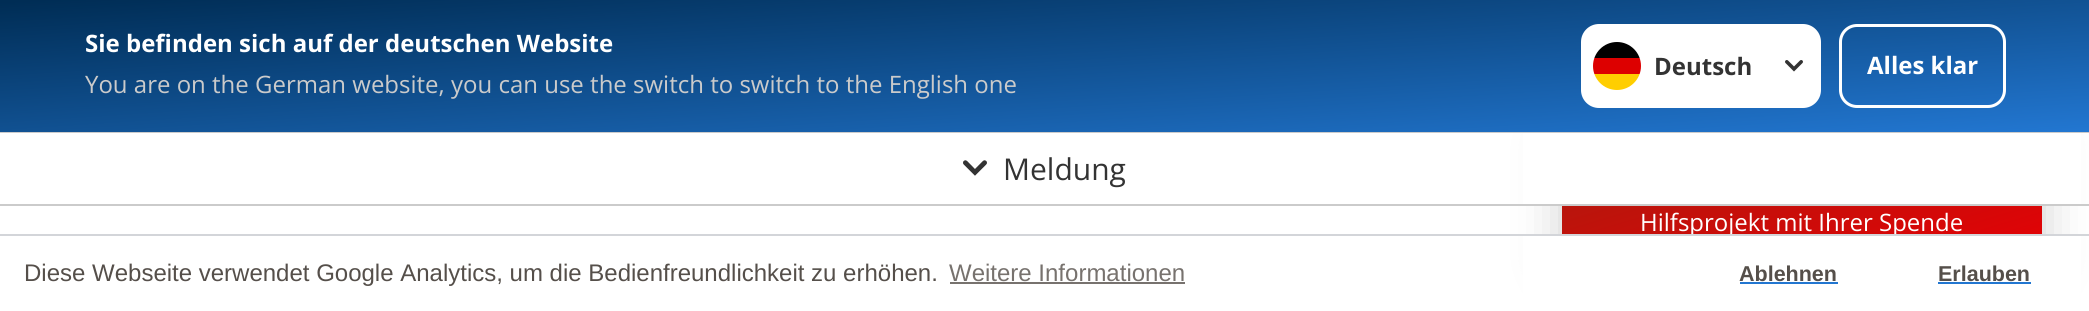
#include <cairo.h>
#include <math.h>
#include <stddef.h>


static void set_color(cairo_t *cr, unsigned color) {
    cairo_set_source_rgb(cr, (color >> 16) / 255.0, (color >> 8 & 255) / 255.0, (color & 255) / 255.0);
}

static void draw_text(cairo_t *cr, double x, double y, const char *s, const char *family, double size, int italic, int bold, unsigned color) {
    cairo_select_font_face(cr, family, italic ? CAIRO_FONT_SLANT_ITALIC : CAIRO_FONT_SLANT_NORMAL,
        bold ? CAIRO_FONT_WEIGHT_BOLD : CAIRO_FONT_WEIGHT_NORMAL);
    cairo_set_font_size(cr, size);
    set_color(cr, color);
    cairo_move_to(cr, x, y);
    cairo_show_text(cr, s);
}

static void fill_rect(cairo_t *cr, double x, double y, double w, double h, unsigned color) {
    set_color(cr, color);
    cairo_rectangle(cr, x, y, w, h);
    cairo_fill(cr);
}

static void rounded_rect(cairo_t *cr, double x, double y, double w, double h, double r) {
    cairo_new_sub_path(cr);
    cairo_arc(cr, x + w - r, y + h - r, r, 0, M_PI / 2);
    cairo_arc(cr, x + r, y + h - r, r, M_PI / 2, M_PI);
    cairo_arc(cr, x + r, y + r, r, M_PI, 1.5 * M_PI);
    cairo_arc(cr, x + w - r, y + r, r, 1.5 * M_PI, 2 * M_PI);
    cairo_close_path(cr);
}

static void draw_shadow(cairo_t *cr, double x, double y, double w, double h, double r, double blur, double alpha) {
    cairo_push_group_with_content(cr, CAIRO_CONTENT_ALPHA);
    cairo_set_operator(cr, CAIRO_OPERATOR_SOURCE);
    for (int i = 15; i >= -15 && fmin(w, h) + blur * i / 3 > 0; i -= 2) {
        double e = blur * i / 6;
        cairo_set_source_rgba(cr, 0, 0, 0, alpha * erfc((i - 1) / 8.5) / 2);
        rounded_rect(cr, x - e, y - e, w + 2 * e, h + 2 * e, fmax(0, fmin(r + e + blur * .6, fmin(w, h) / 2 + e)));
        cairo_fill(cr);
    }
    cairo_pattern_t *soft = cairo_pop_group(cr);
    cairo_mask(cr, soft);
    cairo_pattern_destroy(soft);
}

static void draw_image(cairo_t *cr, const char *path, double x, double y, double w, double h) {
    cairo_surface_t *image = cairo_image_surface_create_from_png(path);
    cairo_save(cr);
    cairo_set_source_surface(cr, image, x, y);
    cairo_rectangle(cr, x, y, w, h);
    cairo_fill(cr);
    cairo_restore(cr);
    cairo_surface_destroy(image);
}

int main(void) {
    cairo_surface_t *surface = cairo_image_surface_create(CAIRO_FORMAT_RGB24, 2089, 311);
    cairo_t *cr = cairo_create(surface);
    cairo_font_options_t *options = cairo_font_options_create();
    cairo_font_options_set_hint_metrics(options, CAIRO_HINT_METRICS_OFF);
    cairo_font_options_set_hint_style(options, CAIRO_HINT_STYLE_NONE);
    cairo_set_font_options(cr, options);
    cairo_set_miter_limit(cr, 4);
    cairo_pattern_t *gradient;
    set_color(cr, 0xFFFFFF);
    cairo_paint(cr);
    set_color(cr, 0x000000);
    draw_shadow(cr, 1562, 131, 480, 144, 9, 24, 0.2);
    gradient = cairo_pattern_create_linear(1036, -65, 1053, 197);
    cairo_pattern_add_color_stop_rgba(gradient, 0, 0, 0.176, 0.333, 1);
    cairo_pattern_add_color_stop_rgba(gradient, 1, 0.133, 0.463, 0.816, 1);
    cairo_set_source(cr, gradient);
    cairo_pattern_destroy(gradient);
    cairo_rectangle(cr, 0, 0, 2089, 132);
    cairo_fill(cr);
    draw_text(cr, 85, 52, "Sie befinden sich auf der deutschen Website", "Open Sans", 24, 0, 1, 0xFFFFFF);
    draw_text(cr, 85, 93, "You are on the German website, you can use the switch to switch to the English one", "Open Sans", 24, 0, 0, 0xCBCBCB);
    set_color(cr, 0xFFFFFF);
    rounded_rect(cr, 1581, 24, 240, 84, 18);
    cairo_fill(cr);
    cairo_save(cr);
    rounded_rect(cr, 1593, 42, 48, 48, 24);
    cairo_clip(cr);
    fill_rect(cr, 1594, 74, 46, 16, 0xFFCE00);
    fill_rect(cr, 1594, 42, 46, 16, 0x000000);
    fill_rect(cr, 1593, 58, 48, 16, 0xDD0000);
    cairo_restore(cr);
    draw_image(cr, "assets/img1.png", 1785, 60, 18, 12);
    draw_text(cr, 1654, 75, "Deutsch", "Open Sans", 24, 0, 1, 0x333333);
    rounded_rect(cr, 1840.5, 25.5, 164, 81, 16.5);
    set_color(cr, 0xFFFFFF);
    cairo_set_line_width(cr, 3);
    cairo_stroke(cr);
    draw_text(cr, 1867, 74, "Alles klar", "Open Sans", 24, 0, 1, 0xFFFFFF);
    fill_rect(cr, 0, 132, 2089, 1, 0xCBCBCB);
    fill_rect(cr, 1523, 133, 558, 71, 0xFFFFFF);
    fill_rect(cr, 0, 204, 2089, 2, 0xCBCBCB);
    draw_image(cr, "assets/img2.png", 963, 160, 24, 16);
    draw_text(cr, 1003, 180, "Meldung", "Open Sans", 30, 0, 0, 0x333333);
    gradient = cairo_pattern_create_linear(1762, 60, 1841, 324);
    cairo_pattern_add_color_stop_rgba(gradient, 0, 0.647, 0.118, 0.059, 1);
    cairo_pattern_add_color_stop_rgba(gradient, 1, 0.902, 0, 0.02, 1);
    cairo_set_source(cr, gradient);
    cairo_pattern_destroy(gradient);
    cairo_rectangle(cr, 1562, 206, 480, 28);
    cairo_fill(cr);
    draw_text(cr, 1640, 231, "Hilfsprojekt mit Ihrer Spende", "Open Sans", 24, 0, 0, 0xFFFFFF);
    fill_rect(cr, 1523, 236, 558, 75, 0xFFFFFF);
    fill_rect(cr, 0, 234, 2089, 2, 0xD3D5D9);
    draw_text(cr, 24, 281, "Diese Webseite verwendet Google Analytics, um die Bedienfreundlichkeit zu erhöhen.", "Liberation Sans", 24, 0, 0, 0x554F4A);
    draw_text(cr, 949, 281, "Weitere Informationen", "Liberation Sans", 24, 0, 0, 0x77726E);
    fill_rect(cr, 950, 282, 235, 2, 0x77726E);
    draw_text(cr, 1739, 281, "Ablehnen", "Liberation Sans", 21.5, 0, 1, 0x554F4A);
    fill_rect(cr, 1740, 282, 98, 2, 0x2276D0);
    draw_text(cr, 1938, 281, "Erlauben", "Liberation Sans", 21.5, 0, 1, 0x554F4A);
    fill_rect(cr, 1938, 282, 93, 2, 0x2276D0);
    cairo_surface_write_to_png(surface, "output.png");
    cairo_font_options_destroy(options);
    cairo_destroy(cr);
    cairo_surface_destroy(surface);
    return 0;
}
